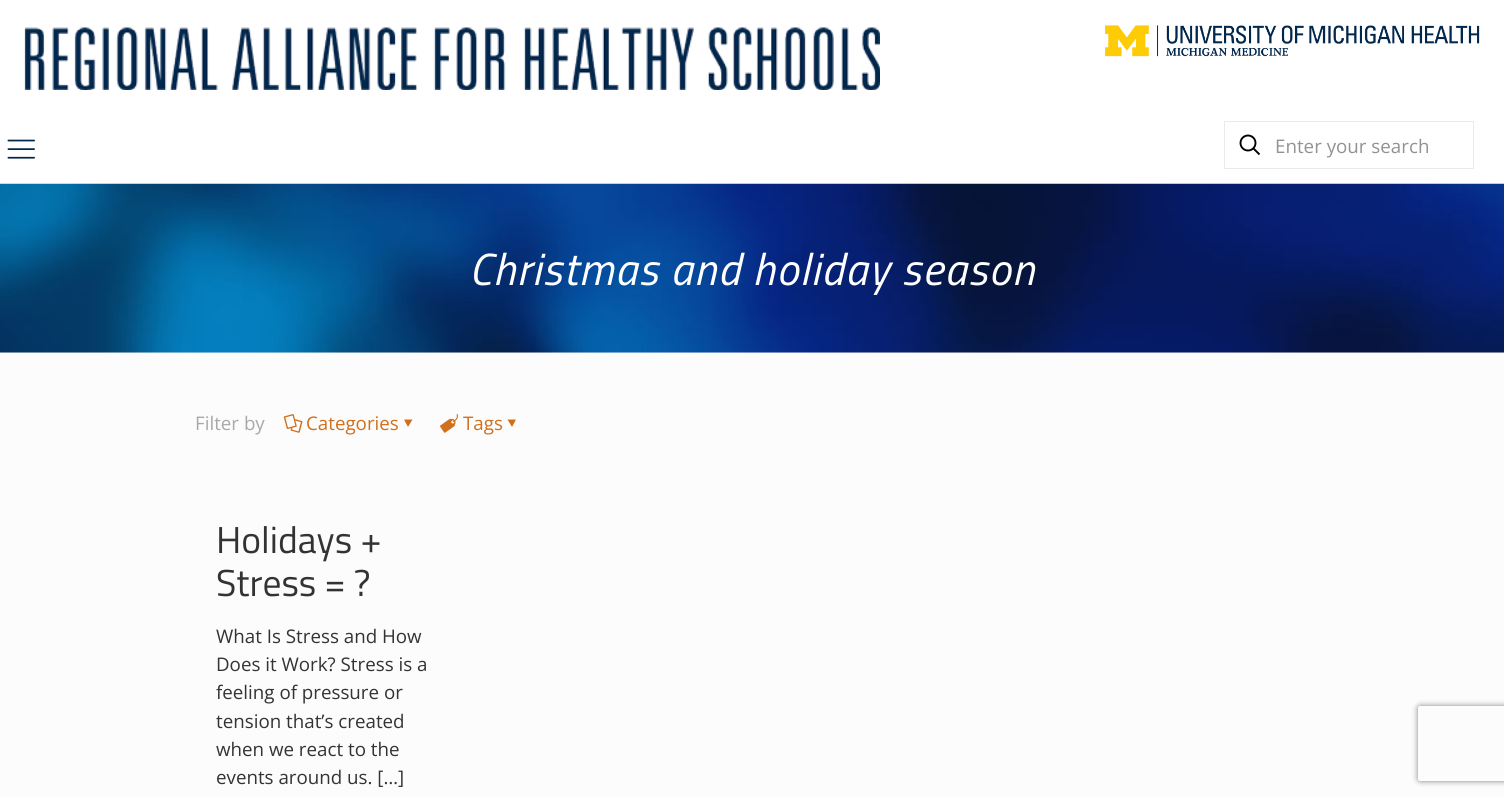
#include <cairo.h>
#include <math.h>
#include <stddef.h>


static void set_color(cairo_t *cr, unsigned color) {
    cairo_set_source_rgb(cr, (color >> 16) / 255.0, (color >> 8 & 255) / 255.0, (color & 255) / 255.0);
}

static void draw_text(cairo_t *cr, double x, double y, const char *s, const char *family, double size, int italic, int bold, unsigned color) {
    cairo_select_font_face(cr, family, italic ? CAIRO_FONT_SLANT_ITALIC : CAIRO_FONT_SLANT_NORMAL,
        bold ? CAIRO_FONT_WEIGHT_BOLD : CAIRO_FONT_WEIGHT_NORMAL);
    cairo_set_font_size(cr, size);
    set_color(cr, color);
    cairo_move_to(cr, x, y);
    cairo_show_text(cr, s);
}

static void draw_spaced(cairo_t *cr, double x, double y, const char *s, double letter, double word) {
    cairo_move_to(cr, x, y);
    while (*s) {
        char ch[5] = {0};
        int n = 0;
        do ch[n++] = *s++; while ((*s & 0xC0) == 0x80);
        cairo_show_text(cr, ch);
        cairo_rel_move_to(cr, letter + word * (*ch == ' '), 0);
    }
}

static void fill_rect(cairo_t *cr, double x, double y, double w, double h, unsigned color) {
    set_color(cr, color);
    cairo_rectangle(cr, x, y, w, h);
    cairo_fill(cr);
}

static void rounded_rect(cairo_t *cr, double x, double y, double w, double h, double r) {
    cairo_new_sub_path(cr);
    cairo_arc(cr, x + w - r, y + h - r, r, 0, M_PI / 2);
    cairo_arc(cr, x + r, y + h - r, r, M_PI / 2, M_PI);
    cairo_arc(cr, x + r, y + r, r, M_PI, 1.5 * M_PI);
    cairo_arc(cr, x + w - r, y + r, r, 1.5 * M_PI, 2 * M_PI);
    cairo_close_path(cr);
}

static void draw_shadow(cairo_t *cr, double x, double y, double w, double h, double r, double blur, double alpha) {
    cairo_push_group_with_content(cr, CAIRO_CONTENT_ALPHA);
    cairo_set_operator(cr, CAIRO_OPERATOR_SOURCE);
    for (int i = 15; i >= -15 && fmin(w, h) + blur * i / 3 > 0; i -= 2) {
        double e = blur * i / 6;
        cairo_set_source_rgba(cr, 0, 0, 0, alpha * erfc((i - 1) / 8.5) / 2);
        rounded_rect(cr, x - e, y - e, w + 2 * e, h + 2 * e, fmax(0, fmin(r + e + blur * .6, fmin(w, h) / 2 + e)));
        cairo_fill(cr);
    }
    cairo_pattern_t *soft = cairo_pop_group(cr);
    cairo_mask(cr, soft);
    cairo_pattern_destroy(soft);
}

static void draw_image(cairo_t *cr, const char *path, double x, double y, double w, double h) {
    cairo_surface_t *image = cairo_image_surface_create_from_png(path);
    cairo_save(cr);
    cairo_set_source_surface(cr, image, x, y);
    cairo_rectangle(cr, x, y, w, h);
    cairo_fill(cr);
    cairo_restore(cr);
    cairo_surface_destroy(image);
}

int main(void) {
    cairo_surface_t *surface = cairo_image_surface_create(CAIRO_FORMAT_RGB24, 1504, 798);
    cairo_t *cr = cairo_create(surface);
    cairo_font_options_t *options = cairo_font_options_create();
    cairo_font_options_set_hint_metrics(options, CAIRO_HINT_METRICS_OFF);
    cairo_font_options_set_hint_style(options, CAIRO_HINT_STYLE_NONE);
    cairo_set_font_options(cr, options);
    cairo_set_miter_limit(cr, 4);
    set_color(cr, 0xFCFCFC);
    cairo_paint(cr);
    fill_rect(cr, 0, 0, 1504, 184, 0xFFFFFF);
    draw_image(cr, "assets/img1.png", 24, 27, 856, 63);
    draw_image(cr, "assets/img2.png", 1105, 25, 375, 32);
    draw_image(cr, "assets/img3.png", 7, 139, 28, 20);
    cairo_rectangle(cr, 1224.5, 121.5, 249, 47);
    set_color(cr, 0xEBEBEB);
    cairo_set_line_width(cr, 1);
    cairo_stroke(cr);
    cairo_arc(cr, 1248, 143, 7.5, 0, 2 * M_PI);
    set_color(cr, 0x000000);
    cairo_set_line_width(cr, 1.9);
    cairo_stroke(cr);
    cairo_new_path(cr);
    cairo_move_to(cr, 1253, 148);
    cairo_line_to(cr, 1259.5, 154.5);
    cairo_stroke(cr);
    draw_text(cr, 1275, 153, "Enter your search", "Open Sans", 18.75, 0, 0, 0x929292);
    fill_rect(cr, 0, 352, 1504, 1, 0xEFEFEF);
    draw_image(cr, "assets/img4.png", 0, 183, 1504, 170);
    cairo_select_font_face(cr, "Titillium Web", CAIRO_FONT_SLANT_ITALIC, CAIRO_FONT_WEIGHT_NORMAL);
    cairo_set_font_size(cr, 45);
    set_color(cr, 0xFFFFFF);
    draw_spaced(cr, 469, 285, "Christmas and holiday season", 1.25, 0);
    draw_text(cr, 195, 430, "Filter by", "Open Sans", 18.75, 0, 0, 0xA8A8A8);
    draw_image(cr, "assets/img5.png", 283, 414, 20, 19);
    draw_text(cr, 306, 430, "Categories", "Open Sans", 18.75, 0, 0, 0xD16F1A);
    cairo_new_path(cr);
    cairo_move_to(cr, 412.5, 419.5);
    cairo_line_to(cr, 408, 427);
    cairo_line_to(cr, 404, 419.5);
    cairo_close_path(cr);
    cairo_fill(cr);
    draw_image(cr, "assets/img6.png", 440, 414, 18, 19);
    draw_text(cr, 463, 430, "Tags", "Open Sans", 18.75, 0, 0, 0xD16F1A);
    cairo_new_path(cr);
    cairo_move_to(cr, 516, 419.5);
    cairo_line_to(cr, 512, 427);
    cairo_line_to(cr, 507.5, 419.5);
    cairo_close_path(cr);
    cairo_fill(cr);
    draw_text(cr, 216, 553, "Holidays +", "Titillium Web", 37.5, 0, 0, 0x333333);
    draw_text(cr, 216, 596, "Stress = ?", "Titillium Web", 37.5, 0, 0, 0x333333);
    draw_text(cr, 216, 643, "What Is Stress and How", "Open Sans", 18.75, 0, 0, 0x333333);
    draw_text(cr, 216, 671, "Does it Work? Stress is a", "Open Sans", 18.75, 0, 0, 0x333333);
    draw_text(cr, 216, 699, "feeling of pressure or", "Open Sans", 18.75, 0, 0, 0x333333);
    draw_text(cr, 216, 728, "tension that’s created", "Open Sans", 18.75, 0, 0, 0x333333);
    draw_text(cr, 216, 756, "when we react to the", "Open Sans", 18.75, 0, 0, 0x333333);
    draw_text(cr, 216, 784, "events around us. […]", "Open Sans", 18.75, 0, 0, 0x333333);
    cairo_save(cr);
    cairo_set_fill_rule(cr, CAIRO_FILL_RULE_EVEN_ODD);
    cairo_new_path(cr);
    cairo_move_to(cr, 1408, 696);
    cairo_line_to(cr, 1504, 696);
    cairo_line_to(cr, 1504, 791);
    cairo_line_to(cr, 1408, 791);
    cairo_close_path(cr);
    cairo_move_to(cr, 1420.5, 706);
    cairo_line_to(cr, 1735.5, 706);
    cairo_curve_to(cr, 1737, 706, 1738, 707, 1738, 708.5);
    cairo_line_to(cr, 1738, 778.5);
    cairo_curve_to(cr, 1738, 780, 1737, 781, 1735.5, 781);
    cairo_line_to(cr, 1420.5, 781);
    cairo_curve_to(cr, 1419, 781, 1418, 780, 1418, 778.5);
    cairo_line_to(cr, 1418, 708.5);
    cairo_curve_to(cr, 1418, 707, 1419, 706, 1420.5, 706);
    cairo_close_path(cr);
    cairo_clip(cr);
    set_color(cr, 0x808080);
    draw_shadow(cr, 1418, 706, 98, 75, 2.5, 3, 1);
    cairo_restore(cr);
    cairo_surface_write_to_png(surface, "output.png");
    cairo_font_options_destroy(options);
    cairo_destroy(cr);
    cairo_surface_destroy(surface);
    return 0;
}
